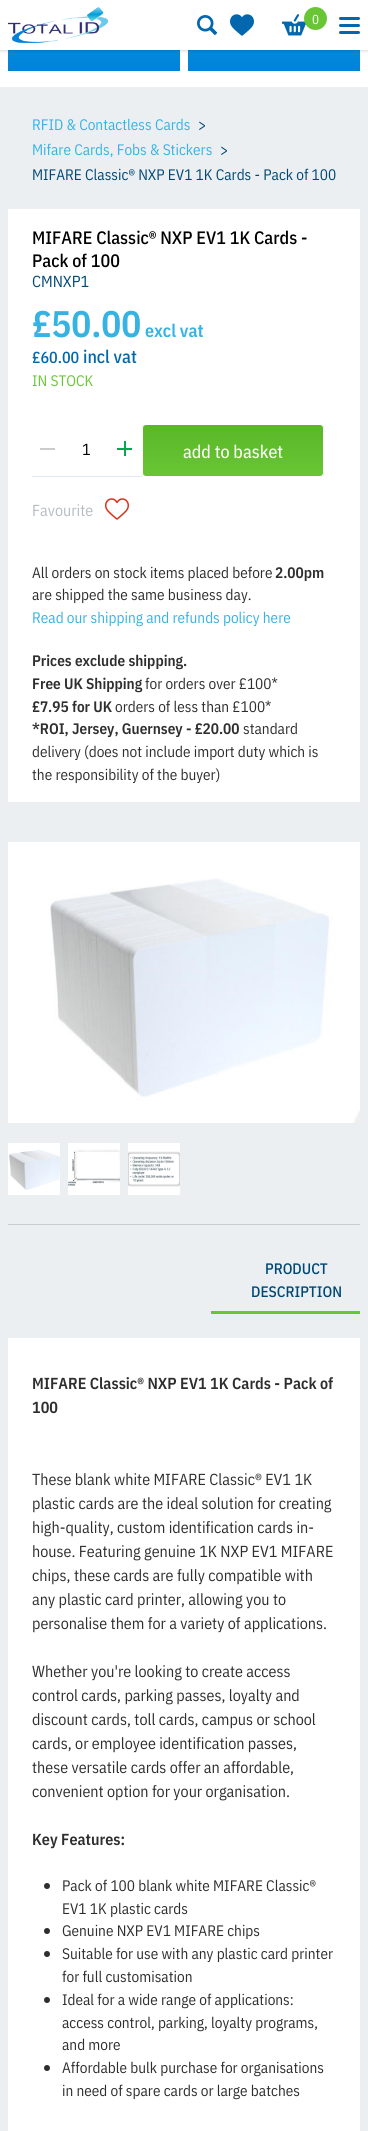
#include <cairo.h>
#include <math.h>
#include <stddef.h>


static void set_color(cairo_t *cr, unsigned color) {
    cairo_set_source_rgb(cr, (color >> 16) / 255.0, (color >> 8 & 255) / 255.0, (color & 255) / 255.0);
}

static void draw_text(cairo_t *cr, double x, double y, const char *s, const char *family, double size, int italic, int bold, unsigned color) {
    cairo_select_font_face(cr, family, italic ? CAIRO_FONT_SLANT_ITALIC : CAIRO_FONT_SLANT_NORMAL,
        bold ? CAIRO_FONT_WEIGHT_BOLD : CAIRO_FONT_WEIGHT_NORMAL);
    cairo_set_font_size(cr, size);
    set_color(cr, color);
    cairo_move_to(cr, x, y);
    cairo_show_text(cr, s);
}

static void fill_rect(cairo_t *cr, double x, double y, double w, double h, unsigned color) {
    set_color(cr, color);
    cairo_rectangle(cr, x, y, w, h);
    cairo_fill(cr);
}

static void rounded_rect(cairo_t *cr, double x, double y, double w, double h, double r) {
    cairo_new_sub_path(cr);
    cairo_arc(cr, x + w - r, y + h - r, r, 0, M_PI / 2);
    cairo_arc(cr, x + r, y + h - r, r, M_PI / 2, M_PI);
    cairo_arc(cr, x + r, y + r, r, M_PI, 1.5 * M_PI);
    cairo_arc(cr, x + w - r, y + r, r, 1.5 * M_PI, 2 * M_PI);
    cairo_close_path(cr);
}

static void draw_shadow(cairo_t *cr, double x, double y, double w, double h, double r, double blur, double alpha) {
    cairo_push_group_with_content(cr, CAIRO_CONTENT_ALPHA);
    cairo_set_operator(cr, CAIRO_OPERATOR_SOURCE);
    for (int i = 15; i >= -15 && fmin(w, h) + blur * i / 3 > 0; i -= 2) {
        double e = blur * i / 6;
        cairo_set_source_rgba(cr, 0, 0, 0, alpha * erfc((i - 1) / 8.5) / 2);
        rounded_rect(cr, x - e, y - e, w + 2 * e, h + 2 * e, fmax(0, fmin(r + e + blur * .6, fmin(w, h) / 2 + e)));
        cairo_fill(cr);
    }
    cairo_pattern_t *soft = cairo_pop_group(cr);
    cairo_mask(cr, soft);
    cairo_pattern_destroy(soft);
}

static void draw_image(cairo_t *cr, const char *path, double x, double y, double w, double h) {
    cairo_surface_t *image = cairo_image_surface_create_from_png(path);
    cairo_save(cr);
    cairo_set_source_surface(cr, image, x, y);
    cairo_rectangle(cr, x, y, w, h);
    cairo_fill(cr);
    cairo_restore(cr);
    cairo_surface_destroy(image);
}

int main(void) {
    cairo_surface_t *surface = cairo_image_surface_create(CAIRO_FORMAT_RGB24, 368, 2131);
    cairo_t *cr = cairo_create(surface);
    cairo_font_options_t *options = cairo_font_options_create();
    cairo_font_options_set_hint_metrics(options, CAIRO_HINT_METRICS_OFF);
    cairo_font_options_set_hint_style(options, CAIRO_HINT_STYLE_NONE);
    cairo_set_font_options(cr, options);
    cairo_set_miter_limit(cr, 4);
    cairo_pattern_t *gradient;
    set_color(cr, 0xEBEFF2);
    cairo_paint(cr);
    fill_rect(cr, 0, 50, 368, 37, 0xFFFFFF);
    gradient = cairo_pattern_create_linear(94, -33, 94, 71);
    cairo_pattern_add_color_stop_rgba(gradient, 0, 0.078, 0.651, 0.871, 1);
    cairo_pattern_add_color_stop_rgba(gradient, 1, 0, 0.51, 0.855, 1);
    cairo_set_source(cr, gradient);
    cairo_pattern_destroy(gradient);
    cairo_rectangle(cr, 8, 50, 172, 21);
    cairo_fill(cr);
    gradient = cairo_pattern_create_linear(274, -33, 274, 71);
    cairo_pattern_add_color_stop_rgba(gradient, 0, 0.078, 0.651, 0.871, 1);
    cairo_pattern_add_color_stop_rgba(gradient, 1, 0, 0.51, 0.855, 1);
    cairo_set_source(cr, gradient);
    cairo_pattern_destroy(gradient);
    cairo_rectangle(cr, 188, 50, 172, 21);
    cairo_fill(cr);
    set_color(cr, 0x000000);
    draw_shadow(cr, 0, 1, 368, 50, 0, 1, 0.06);
    draw_shadow(cr, 0, 1, 368, 50, 0, 1.5, 0.1);
    fill_rect(cr, 0, 0, 368, 50, 0xFFFFFF);
    draw_image(cr, "assets/img1.png", 8, 7, 100, 36);
    draw_image(cr, "assets/img2.png", 197, 15, 21, 20);
    draw_image(cr, "assets/img3.png", 230, 14, 24, 22);
    draw_image(cr, "assets/img4.png", 282, 14, 24, 22);
    set_color(cr, 0x68C635);
    cairo_arc(cr, 315.5, 18.5, 11.5, 0, 2 * M_PI);
    cairo_fill(cr);
    draw_text(cr, 312, 24, "0", "IBM Plex Sans Condensed", 13, 0, 0, 0xFFFFFF);
    set_color(cr, 0x0267AC);
    rounded_rect(cr, 339, 17, 21, 3, 1.5);
    cairo_fill(cr);
    rounded_rect(cr, 339, 24, 21, 3, 1.5);
    cairo_fill(cr);
    rounded_rect(cr, 339, 31, 21, 3, 1.5);
    cairo_fill(cr);
    draw_text(cr, 32, 130, "RFID & Contactless Cards", "IBM Plex Sans Condensed", 15.2, 0, 0, 0x36B3E3);
    draw_text(cr, 198, 130, ">", "IBM Plex Sans Condensed", 15.2, 0, 0, 0x004774);
    draw_text(cr, 32, 155, "Mifare Cards, Fobs & Stickers", "IBM Plex Sans Condensed", 15.2, 0, 0, 0x36B3E3);
    draw_text(cr, 220, 155, ">", "IBM Plex Sans Condensed", 15.2, 0, 0, 0x004774);
    draw_text(cr, 32, 180, "MIFARE Classic® NXP EV1 1K Cards - Pack of 100", "IBM Plex Sans Condensed", 15.2, 0, 0, 0x004774);
    fill_rect(cr, 8, 209, 352, 593, 0xFFFFFF);
    draw_text(cr, 32, 244, "MIFARE Classic® NXP EV1 1K Cards -", "IBM Plex Sans Condensed Medium", 18, 0, 0, 0x000000);
    draw_text(cr, 32, 267, "Pack of 100", "IBM Plex Sans Condensed Medium", 18, 0, 0, 0x000000);
    draw_text(cr, 32, 287, "CMNXP1", "IBM Plex Sans Condensed", 16, 0, 0, 0x004774);
    draw_text(cr, 32, 337, "£50.00", "IBM Plex Sans Condensed SemiBold", 37, 0, 0, 0x36B3E3);
    draw_text(cr, 145, 337, "excl vat", "IBM Plex Sans Condensed SemiBold", 18, 0, 0, 0x36B3E3);
    draw_text(cr, 32, 363, "£60.00", "IBM Plex Sans Condensed Medium", 16, 0, 0, 0x0267AC);
    draw_text(cr, 83, 363, "incl vat", "IBM Plex Sans Condensed Medium", 18, 0, 0, 0x0267AC);
    draw_text(cr, 32, 386, "IN STOCK", "IBM Plex Sans Condensed", 15.2, 0, 0, 0x68C635);
    fill_rect(cr, 32, 476, 110, 1, 0xE2E8F0);
    fill_rect(cr, 40, 448, 15, 2, 0xCCCCCC);
    draw_text(cr, 82, 455, "1", "IBM Plex Sans Condensed", 16, 0, 0, 0x000000);
    fill_rect(cr, 117, 448, 15, 2, 0x00A94F);
    fill_rect(cr, 124, 441, 2, 15, 0x00A94F);
    cairo_save(cr);
    rounded_rect(cr, 142, 424, 182, 53, 4);
    cairo_clip(cr);
    gradient = cairo_pattern_create_linear(233, 425, 233, 476);
    cairo_pattern_add_color_stop_rgba(gradient, 0, 0.353, 0.718, 0.153, 1);
    cairo_pattern_add_color_stop_rgba(gradient, 1, 0.408, 0.776, 0.208, 1);
    cairo_set_source(cr, gradient);
    cairo_pattern_destroy(gradient);
    cairo_rectangle(cr, 142, 425, 182, 51);
    cairo_fill(cr);
    cairo_restore(cr);
    rounded_rect(cr, 142.5, 424.5, 181, 52, 3.5);
    set_color(cr, 0xFFFFFF);
    cairo_set_line_width(cr, 1);
    cairo_stroke(cr);
    draw_text(cr, 183, 458, "add to basket", "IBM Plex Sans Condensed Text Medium", 18, 0, 0, 0xFFFFFF);
    draw_text(cr, 32, 516, "Favourite", "IBM Plex Sans Condensed", 16, 0, 0, 0xB7BCC2);
    draw_image(cr, "assets/img5.png", 105, 498, 24, 22);
    draw_text(cr, 32, 578, "All orders on stock items placed before", "IBM Plex Sans Condensed", 15.2, 0, 0, 0x2E2E2F);
    draw_text(cr, 275, 578, "2.00pm", "IBM Plex Sans Condensed SemiBold", 15.2, 0, 0, 0x2E2E2F);
    draw_text(cr, 32, 600, "are shipped the same business day.", "IBM Plex Sans Condensed", 15.2, 0, 0, 0x2E2E2F);
    draw_text(cr, 32, 623, "Read our shipping and refunds policy here", "IBM Plex Sans Condensed", 15.2, 0, 0, 0x36B3E3);
    draw_text(cr, 32, 666, "Prices exclude shipping.", "IBM Plex Sans Condensed SemiBold", 15.2, 0, 0, 0x2E2E2F);
    draw_text(cr, 32, 689, "Free UK Shipping", "IBM Plex Sans Condensed SemiBold", 15.2, 0, 0, 0x2E2E2F);
    draw_text(cr, 145, 689, "for orders over £100*", "IBM Plex Sans Condensed", 15.2, 0, 0, 0x2E2E2F);
    draw_text(cr, 32, 712, "£7.95 for UK", "IBM Plex Sans Condensed SemiBold", 15.2, 0, 0, 0x2E2E2F);
    draw_text(cr, 115, 712, "orders of less than £100*", "IBM Plex Sans Condensed", 15.2, 0, 0, 0x2E2E2F);
    draw_text(cr, 32, 734, "*ROI, Jersey, Guernsey - £20.00", "IBM Plex Sans Condensed SemiBold", 15.2, 0, 0, 0x2E2E2F);
    draw_text(cr, 243, 734, "standard", "IBM Plex Sans Condensed", 15.2, 0, 0, 0x2E2E2F);
    draw_text(cr, 32, 757, "delivery (does not include import duty which is", "IBM Plex Sans Condensed", 15.2, 0, 0, 0x2E2E2F);
    draw_text(cr, 32, 780, "the responsibility of the buyer)", "IBM Plex Sans Condensed", 15.2, 0, 0, 0x2E2E2F);
    fill_rect(cr, 8, 842, 352, 281, 0xFFFFFF);
    draw_image(cr, "assets/img6.png", 50, 878, 310, 245);
    fill_rect(cr, 8, 1143, 52, 52, 0xFFFFFF);
    draw_image(cr, "assets/img7.png", 9, 1150, 51, 40);
    fill_rect(cr, 68, 1143, 52, 52, 0xFFFFFF);
    draw_image(cr, "assets/img8.png", 68, 1149, 52, 37);
    fill_rect(cr, 128, 1143, 52, 52, 0xFFFFFF);
    draw_image(cr, "assets/img9.png", 128, 1151, 52, 36);
    fill_rect(cr, 8, 1224, 352, 1, 0xC8CBCE);
    fill_rect(cr, 211, 1311, 149, 3, 0x68C635);
    draw_text(cr, 265, 1274, "PRODUCT", "IBM Plex Sans Condensed Medium", 15.2, 0, 0, 0x004774);
    draw_text(cr, 251, 1297, "DESCRIPTION", "IBM Plex Sans Condensed Medium", 15.2, 0, 0, 0x004774);
    fill_rect(cr, 8, 1338, 352, 793, 0xFFFFFF);
    draw_text(cr, 32, 1389, "MIFARE Classic® NXP EV1 1K Cards - Pack of", "IBM Plex Sans Condensed SemiBold", 16, 0, 0, 0x2E2E2F);
    draw_text(cr, 32, 1413, "100", "IBM Plex Sans Condensed SemiBold", 16, 0, 0, 0x2E2E2F);
    draw_text(cr, 32, 1485, "These blank white MIFARE Classic® EV1 1K", "IBM Plex Sans Condensed", 16, 0, 0, 0x2E2E2F);
    draw_text(cr, 32, 1509, "plastic cards are the ideal solution for creating", "IBM Plex Sans Condensed", 16, 0, 0, 0x2E2E2F);
    draw_text(cr, 32, 1533, "high-quality, custom identification cards in-", "IBM Plex Sans Condensed", 16, 0, 0, 0x2E2E2F);
    draw_text(cr, 32, 1557, "house. Featuring genuine 1K NXP EV1 MIFARE", "IBM Plex Sans Condensed", 16, 0, 0, 0x2E2E2F);
    draw_text(cr, 32, 1581, "chips, these cards are fully compatible with", "IBM Plex Sans Condensed", 16, 0, 0, 0x2E2E2F);
    draw_text(cr, 32, 1605, "any plastic card printer, allowing you to", "IBM Plex Sans Condensed", 16, 0, 0, 0x2E2E2F);
    draw_text(cr, 32, 1629, "personalise them for a variety of applications.", "IBM Plex Sans Condensed", 16, 0, 0, 0x2E2E2F);
    draw_text(cr, 32, 1677, "Whether you're looking to create access", "IBM Plex Sans Condensed", 16, 0, 0, 0x2E2E2F);
    draw_text(cr, 32, 1701, "control cards, parking passes, loyalty and", "IBM Plex Sans Condensed", 16, 0, 0, 0x2E2E2F);
    draw_text(cr, 32, 1725, "discount cards, toll cards, campus or school", "IBM Plex Sans Condensed", 16, 0, 0, 0x2E2E2F);
    draw_text(cr, 32, 1749, "cards, or employee identification passes,", "IBM Plex Sans Condensed", 16, 0, 0, 0x2E2E2F);
    draw_text(cr, 32, 1773, "these versatile cards offer an affordable,", "IBM Plex Sans Condensed", 16, 0, 0, 0x2E2E2F);
    draw_text(cr, 32, 1797, "convenient option for your organisation.", "IBM Plex Sans Condensed", 16, 0, 0, 0x2E2E2F);
    draw_text(cr, 32, 1845, "Key Features:", "IBM Plex Sans Condensed SemiBold", 16, 0, 0, 0x2E2E2F);
    cairo_new_path(cr);
    cairo_arc(cr, 47, 1886, 3, 0, 2 * M_PI);
    cairo_fill(cr);
    draw_text(cr, 62, 1891, "Pack of 100 blank white MIFARE Classic®", "IBM Plex Sans Condensed", 15.2, 0, 0, 0x2E2E2F);
    draw_text(cr, 62, 1914, "EV1 1K plastic cards", "IBM Plex Sans Condensed", 15.2, 0, 0, 0x2E2E2F);
    cairo_new_path(cr);
    cairo_arc(cr, 47, 1931, 3, 0, 2 * M_PI);
    cairo_fill(cr);
    draw_text(cr, 62, 1936, "Genuine NXP EV1 MIFARE chips", "IBM Plex Sans Condensed", 15.2, 0, 0, 0x2E2E2F);
    cairo_new_path(cr);
    cairo_arc(cr, 47, 1954, 3, 0, 2 * M_PI);
    cairo_fill(cr);
    draw_text(cr, 62, 1959, "Suitable for use with any plastic card printer", "IBM Plex Sans Condensed", 15.2, 0, 0, 0x2E2E2F);
    draw_text(cr, 62, 1982, "for full customisation", "IBM Plex Sans Condensed", 15.2, 0, 0, 0x2E2E2F);
    cairo_new_path(cr);
    cairo_arc(cr, 47, 2000, 3, 0, 2 * M_PI);
    cairo_fill(cr);
    draw_text(cr, 62, 2005, "Ideal for a wide range of applications:", "IBM Plex Sans Condensed", 15.2, 0, 0, 0x2E2E2F);
    draw_text(cr, 62, 2028, "access control, parking, loyalty programs,", "IBM Plex Sans Condensed", 15.2, 0, 0, 0x2E2E2F);
    draw_text(cr, 62, 2050, "and more", "IBM Plex Sans Condensed", 15.2, 0, 0, 0x2E2E2F);
    cairo_new_path(cr);
    cairo_arc(cr, 47, 2068, 3, 0, 2 * M_PI);
    cairo_fill(cr);
    draw_text(cr, 62, 2073, "Affordable bulk purchase for organisations", "IBM Plex Sans Condensed", 15.2, 0, 0, 0x2E2E2F);
    draw_text(cr, 62, 2096, "in need of spare cards or large batches", "IBM Plex Sans Condensed", 15.2, 0, 0, 0x2E2E2F);
    cairo_surface_write_to_png(surface, "output.png");
    cairo_font_options_destroy(options);
    cairo_destroy(cr);
    cairo_surface_destroy(surface);
    return 0;
}
